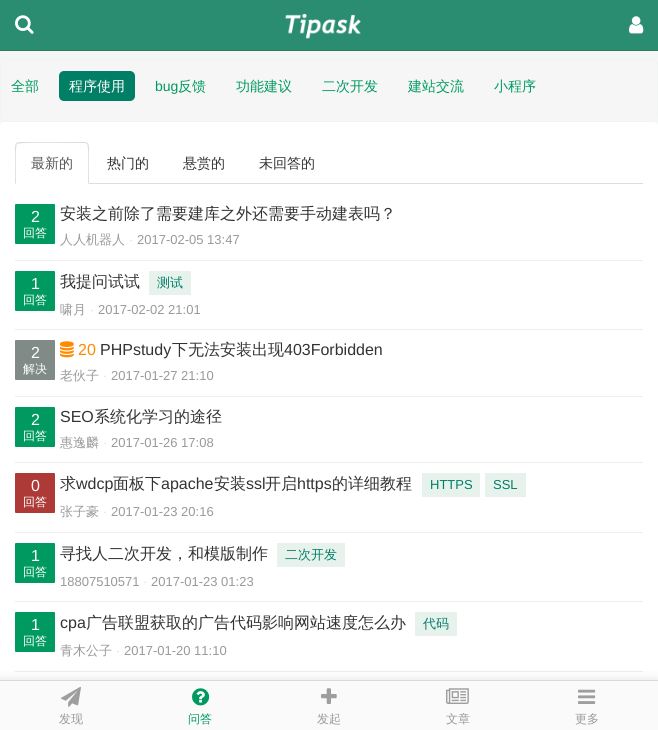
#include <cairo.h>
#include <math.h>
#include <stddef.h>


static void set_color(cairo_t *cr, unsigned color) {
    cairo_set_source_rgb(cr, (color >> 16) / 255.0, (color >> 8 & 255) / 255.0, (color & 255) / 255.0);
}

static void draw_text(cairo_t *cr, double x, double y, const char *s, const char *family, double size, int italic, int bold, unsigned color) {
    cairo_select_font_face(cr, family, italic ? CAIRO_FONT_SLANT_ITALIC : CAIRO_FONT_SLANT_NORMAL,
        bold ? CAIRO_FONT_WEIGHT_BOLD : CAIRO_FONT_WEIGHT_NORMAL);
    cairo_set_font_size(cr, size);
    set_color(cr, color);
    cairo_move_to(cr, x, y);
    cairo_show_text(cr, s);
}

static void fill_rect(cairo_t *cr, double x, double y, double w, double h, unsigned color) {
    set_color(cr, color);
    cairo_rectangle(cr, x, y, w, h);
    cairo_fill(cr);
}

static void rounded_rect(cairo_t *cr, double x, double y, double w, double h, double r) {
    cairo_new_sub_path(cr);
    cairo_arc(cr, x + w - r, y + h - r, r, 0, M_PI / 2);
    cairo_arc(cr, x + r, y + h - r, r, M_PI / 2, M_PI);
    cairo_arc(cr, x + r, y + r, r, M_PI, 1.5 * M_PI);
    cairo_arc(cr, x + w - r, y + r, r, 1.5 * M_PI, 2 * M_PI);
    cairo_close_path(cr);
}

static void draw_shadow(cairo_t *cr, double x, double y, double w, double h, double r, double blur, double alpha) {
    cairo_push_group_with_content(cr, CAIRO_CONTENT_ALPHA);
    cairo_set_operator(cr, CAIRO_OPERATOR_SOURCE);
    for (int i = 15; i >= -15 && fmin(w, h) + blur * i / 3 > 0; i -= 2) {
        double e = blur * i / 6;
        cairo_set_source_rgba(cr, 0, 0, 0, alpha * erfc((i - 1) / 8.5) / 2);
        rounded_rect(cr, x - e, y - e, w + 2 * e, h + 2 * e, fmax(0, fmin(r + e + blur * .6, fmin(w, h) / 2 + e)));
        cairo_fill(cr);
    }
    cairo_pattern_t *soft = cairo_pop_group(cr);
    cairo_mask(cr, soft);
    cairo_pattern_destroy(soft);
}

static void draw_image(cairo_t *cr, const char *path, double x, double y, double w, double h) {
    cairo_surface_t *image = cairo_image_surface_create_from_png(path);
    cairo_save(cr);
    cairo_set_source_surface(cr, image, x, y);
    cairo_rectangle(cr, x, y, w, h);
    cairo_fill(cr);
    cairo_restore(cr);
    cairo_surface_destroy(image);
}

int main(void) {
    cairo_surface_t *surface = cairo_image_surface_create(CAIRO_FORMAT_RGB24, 658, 730);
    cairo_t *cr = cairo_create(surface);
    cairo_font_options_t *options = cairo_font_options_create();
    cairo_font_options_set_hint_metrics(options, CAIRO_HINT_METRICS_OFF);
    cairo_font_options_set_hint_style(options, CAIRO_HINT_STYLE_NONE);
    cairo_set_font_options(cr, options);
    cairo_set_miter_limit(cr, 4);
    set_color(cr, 0xF6F6F6);
    cairo_paint(cr);
    rounded_rect(cr, 0.5, 60.5, 657, 61, 3.5);
    set_color(cr, 0xF0F5F3);
    cairo_set_line_width(cr, 1);
    cairo_stroke(cr);
    draw_text(cr, 11, 91, "全部", "WenQuanYi Zen Hei Medium", 14, 0, 0, 0x009A61);
    set_color(cr, 0x017E66);
    rounded_rect(cr, 59, 71, 76, 30, 5);
    cairo_fill(cr);
    draw_text(cr, 69, 91, "程序使用", "WenQuanYi Zen Hei Medium", 14, 0, 0, 0xFFFFFF);
    draw_text(cr, 155, 91, "bug", "Liberation Sans", 14, 0, 0, 0x009A61);
    draw_text(cr, 178, 91, "反馈", "WenQuanYi Zen Hei Medium", 14, 0, 0, 0x009A61);
    draw_text(cr, 236, 91, "功能建议", "WenQuanYi Zen Hei Medium", 14, 0, 0, 0x009A61);
    draw_text(cr, 322, 91, "二次开发", "WenQuanYi Zen Hei Medium", 14, 0, 0, 0x009A61);
    draw_text(cr, 408, 91, "建站交流", "WenQuanYi Zen Hei Medium", 14, 0, 0, 0x009A61);
    draw_text(cr, 494, 91, "小程序", "WenQuanYi Zen Hei Medium", 14, 0, 0, 0x009A61);
    set_color(cr, 0xFFFFFF);
    rounded_rect(cr, 0, 122, 658, 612, 4);
    cairo_fill(cr);
    fill_rect(cr, 89, 183, 554, 1, 0xDDDDDD);
    cairo_new_path(cr);
    cairo_move_to(cr, 19, 142);
    cairo_line_to(cr, 16, 143);
    cairo_line_to(cr, 17, 144);
    cairo_curve_to(cr, 19, 142, 68, 143, 74, 143);
    cairo_line_to(cr, 85, 143);
    cairo_line_to(cr, 87, 144);
    cairo_line_to(cr, 88, 143);
    cairo_line_to(cr, 85, 142);
    cairo_close_path(cr);
    cairo_fill(cr);
    cairo_new_path(cr);
    cairo_move_to(cr, 89, 184);
    cairo_line_to(cr, 89, 146);
    cairo_curve_to(cr, 89, 145, 88, 144, 88, 143);
    cairo_line_to(cr, 87, 144);
    cairo_curve_to(cr, 89, 146, 88, 178, 88, 183);
    cairo_close_path(cr);
    cairo_fill(cr);
    cairo_new_path(cr);
    cairo_move_to(cr, 15, 184);
    cairo_line_to(cr, 16, 183);
    cairo_curve_to(cr, 16, 178, 15, 146, 17, 144);
    cairo_line_to(cr, 16, 143);
    cairo_line_to(cr, 15, 146);
    cairo_close_path(cr);
    cairo_fill(cr);
    draw_text(cr, 31, 168, "最新的", "WenQuanYi Zen Hei Medium", 14, 0, 0, 0x555555);
    draw_text(cr, 107, 168, "热门的", "WenQuanYi Zen Hei Medium", 14, 0, 0, 0x333333);
    draw_text(cr, 183, 168, "悬赏的", "WenQuanYi Zen Hei Medium", 14, 0, 0, 0x333333);
    draw_text(cr, 259, 168, "未回答的", "WenQuanYi Zen Hei Medium", 14, 0, 0, 0x333333);
    fill_rect(cr, 15, 260, 628, 1, 0xEEEEEE);
    set_color(cr, 0x009A61);
    rounded_rect(cr, 15, 204, 40, 40, 1);
    cairo_fill(cr);
    draw_text(cr, 31, 222, "2", "Liberation Sans", 16, 0, 0, 0xFFFFFF);
    draw_text(cr, 23, 237, "回答", "WenQuanYi Zen Hei Medium", 12, 0, 0, 0xFFFFFF);
    draw_text(cr, 60, 219, "安装之前除了需要建库之外还需要手动建表吗？", "WenQuanYi Zen Hei Medium", 16, 0, 0, 0x333333);
    draw_text(cr, 60, 244, "人人机器人", "WenQuanYi Zen Hei Medium", 13, 0, 0, 0x999999);
    draw_text(cr, 129, 244, "·", "Liberation Sans", 13, 0, 0, 0xDDDDDD);
    draw_text(cr, 137, 244, "2017-02-05 13:47", "Liberation Sans", 13, 0, 0, 0x999999);
    fill_rect(cr, 15, 329, 628, 1, 0xEEEEEE);
    set_color(cr, 0x009A61);
    rounded_rect(cr, 15, 271, 40, 40, 1);
    cairo_fill(cr);
    draw_text(cr, 31, 289, "1", "Liberation Sans", 16, 0, 0, 0xFFFFFF);
    draw_text(cr, 23, 304, "回答", "WenQuanYi Zen Hei Medium", 12, 0, 0, 0xFFFFFF);
    draw_text(cr, 60, 287, "我提问试试", "WenQuanYi Zen Hei Medium", 16, 0, 0, 0x333333);
    fill_rect(cr, 149, 271, 42, 24, 0xE7F2ED);
    draw_text(cr, 157, 287, "测试", "WenQuanYi Zen Hei Medium", 13, 0, 0, 0x017E66);
    draw_text(cr, 60, 314, "啸月", "WenQuanYi Zen Hei Medium", 13, 0, 0, 0x999999);
    draw_text(cr, 90, 314, "·", "Liberation Sans", 13, 0, 0, 0xDDDDDD);
    draw_text(cr, 98, 314, "2017-02-02 21:01", "Liberation Sans", 13, 0, 0, 0x999999);
    fill_rect(cr, 15, 396, 628, 1, 0xEEEEEE);
    set_color(cr, 0x808B87);
    rounded_rect(cr, 15, 340, 40, 40, 1);
    cairo_fill(cr);
    draw_text(cr, 31, 358, "2", "Liberation Sans", 16, 0, 0, 0xFFFFFF);
    draw_text(cr, 23, 373, "解决", "WenQuanYi Zen Hei Medium", 12, 0, 0, 0xFFFFFF);
    draw_image(cr, "assets/img1.png", 60, 341, 14, 17);
    draw_text(cr, 78, 355, "20", "Liberation Sans", 16, 0, 0, 0xFF8A00);
    draw_text(cr, 100, 355, "PHPstudy", "Liberation Sans", 16, 0, 0, 0x333333);
    draw_text(cr, 172, 355, "下无法安装出现", "WenQuanYi Zen Hei Medium", 16, 0, 0, 0x333333);
    draw_text(cr, 284, 355, "403Forbidden", "Liberation Sans", 16, 0, 0, 0x333333);
    draw_text(cr, 60, 380, "老伙子", "WenQuanYi Zen Hei Medium", 13, 0, 0, 0x999999);
    draw_text(cr, 103, 380, "·", "Liberation Sans", 13, 0, 0, 0xDDDDDD);
    draw_text(cr, 111, 380, "2017-01-27 21:10", "Liberation Sans", 13, 0, 0, 0x999999);
    fill_rect(cr, 15, 462, 628, 1, 0xEEEEEE);
    set_color(cr, 0x009A61);
    rounded_rect(cr, 15, 407, 40, 40, 1);
    cairo_fill(cr);
    draw_text(cr, 31, 425, "2", "Liberation Sans", 16, 0, 0, 0xFFFFFF);
    draw_text(cr, 23, 440, "回答", "WenQuanYi Zen Hei Medium", 12, 0, 0, 0xFFFFFF);
    draw_text(cr, 60, 422, "SEO", "Liberation Sans", 16, 0, 0, 0x333333);
    draw_text(cr, 94, 422, "系统化学习的途径", "WenQuanYi Zen Hei Medium", 16, 0, 0, 0x333333);
    draw_text(cr, 60, 447, "惠逸麟", "WenQuanYi Zen Hei Medium", 13, 0, 0, 0x999999);
    draw_text(cr, 103, 447, "·", "Liberation Sans", 13, 0, 0, 0xDDDDDD);
    draw_text(cr, 111, 447, "2017-01-26 17:08", "Liberation Sans", 13, 0, 0, 0x999999);
    fill_rect(cr, 15, 532, 628, 1, 0xEEEEEE);
    set_color(cr, 0xAD3A37);
    rounded_rect(cr, 15, 473, 40, 40, 1);
    cairo_fill(cr);
    draw_text(cr, 31, 491, "0", "Liberation Sans", 16, 0, 0, 0xFFFFFF);
    draw_text(cr, 23, 506, "回答", "WenQuanYi Zen Hei Medium", 12, 0, 0, 0xFFFFFF);
    draw_text(cr, 60, 489, "求", "WenQuanYi Zen Hei Medium", 16, 0, 0, 0x333333);
    draw_text(cr, 76, 489, "wdcp", "Liberation Sans", 16, 0, 0, 0x333333);
    draw_text(cr, 113, 489, "面板下", "WenQuanYi Zen Hei Medium", 16, 0, 0, 0x333333);
    draw_text(cr, 161, 489, "apache", "Liberation Sans", 16, 0, 0, 0x333333);
    draw_text(cr, 214, 489, "安装", "WenQuanYi Zen Hei Medium", 16, 0, 0, 0x333333);
    draw_text(cr, 246, 489, "ssl", "Liberation Sans", 16, 0, 0, 0x333333);
    draw_text(cr, 265, 489, "开启", "WenQuanYi Zen Hei Medium", 16, 0, 0, 0x333333);
    draw_text(cr, 297, 489, "https", "Liberation Sans", 16, 0, 0, 0x333333);
    draw_text(cr, 332, 489, "的详细教程", "WenQuanYi Zen Hei Medium", 16, 0, 0, 0x333333);
    fill_rect(cr, 422, 473, 58, 24, 0xE7F2ED);
    draw_text(cr, 430, 489, "HTTPS", "Liberation Sans", 13, 0, 0, 0x017E66);
    fill_rect(cr, 485, 473, 41, 24, 0xE7F2ED);
    draw_text(cr, 493, 489, "SSL", "Liberation Sans", 13, 0, 0, 0x017E66);
    draw_text(cr, 60, 516, "张子豪", "WenQuanYi Zen Hei Medium", 13, 0, 0, 0x999999);
    draw_text(cr, 103, 516, "·", "Liberation Sans", 13, 0, 0, 0xDDDDDD);
    draw_text(cr, 111, 516, "2017-01-23 20:16", "Liberation Sans", 13, 0, 0, 0x999999);
    fill_rect(cr, 15, 601, 628, 1, 0xEEEEEE);
    set_color(cr, 0x009A61);
    rounded_rect(cr, 15, 543, 40, 40, 1);
    cairo_fill(cr);
    draw_text(cr, 31, 561, "1", "Liberation Sans", 16, 0, 0, 0xFFFFFF);
    draw_text(cr, 23, 576, "回答", "WenQuanYi Zen Hei Medium", 12, 0, 0, 0xFFFFFF);
    draw_text(cr, 60, 559, "寻找人二次开发，和模版制作", "WenQuanYi Zen Hei Medium", 16, 0, 0, 0x333333);
    fill_rect(cr, 277, 543, 68, 24, 0xE7F2ED);
    draw_text(cr, 285, 559, "二次开发", "WenQuanYi Zen Hei Medium", 13, 0, 0, 0x017E66);
    draw_text(cr, 60, 586, "18807510571", "Liberation Sans", 13, 0, 0, 0x999999);
    draw_text(cr, 143, 586, "·", "Liberation Sans", 13, 0, 0, 0xDDDDDD);
    draw_text(cr, 151, 586, "2017-01-23 01:23", "Liberation Sans", 13, 0, 0, 0x999999);
    fill_rect(cr, 15, 671, 628, 1, 0xEEEEEE);
    set_color(cr, 0x009A61);
    rounded_rect(cr, 15, 612, 40, 40, 1);
    cairo_fill(cr);
    draw_text(cr, 31, 630, "1", "Liberation Sans", 16, 0, 0, 0xFFFFFF);
    draw_text(cr, 23, 645, "回答", "WenQuanYi Zen Hei Medium", 12, 0, 0, 0xFFFFFF);
    draw_text(cr, 60, 628, "cpa", "Liberation Sans", 16, 0, 0, 0x333333);
    draw_text(cr, 86, 628, "广告联盟获取的广告代码影响网站速度怎么办", "WenQuanYi Zen Hei Medium", 16, 0, 0, 0x333333);
    fill_rect(cr, 415, 612, 42, 24, 0xE7F2ED);
    draw_text(cr, 423, 628, "代码", "WenQuanYi Zen Hei Medium", 13, 0, 0, 0x017E66);
    draw_text(cr, 60, 655, "青木公子", "WenQuanYi Zen Hei Medium", 13, 0, 0, 0x999999);
    draw_text(cr, 116, 655, "·", "Liberation Sans", 13, 0, 0, 0xDDDDDD);
    draw_text(cr, 124, 655, "2017-01-20 11:10", "Liberation Sans", 13, 0, 0, 0x999999);
    fill_rect(cr, 0, 0, 658, 50, 0x2A8C70);
    fill_rect(cr, 0, 50, 658, 1, 0x2B7A5C);
    draw_image(cr, "assets/img2.png", 15, 15, 19, 19);
    draw_image(cr, "assets/img3.png", 285, 13, 76, 26);
    draw_image(cr, "assets/img4.png", 629, 16, 15, 18);
    set_color(cr, 0x000000);
    draw_shadow(cr, 0, 679, 658, 49, 0, 5, 0.1);
    cairo_set_source_rgba(cr, 0, 0, 0, 0.1);
    cairo_rectangle(cr, 0, 680, 658, 1);
    cairo_fill(cr);
    fill_rect(cr, 0, 681, 658, 49, 0xFAFAFA);
    draw_image(cr, "assets/img5.png", 61, 686, 20, 21);
    draw_text(cr, 59, 723, "发现", "WenQuanYi Zen Hei Medium", 12, 0, 0, 0x999999);
    draw_image(cr, "assets/img6.png", 192, 688, 18, 18);
    draw_text(cr, 188, 723, "问答", "WenQuanYi Zen Hei Medium", 12, 0, 0, 0x009A61);
    draw_image(cr, "assets/img7.png", 321, 688, 16, 16);
    draw_text(cr, 317, 723, "发起", "WenQuanYi Zen Hei Medium", 12, 0, 0, 0x999999);
    draw_image(cr, "assets/img8.png", 446, 688, 23, 16);
    draw_text(cr, 446, 723, "文章", "WenQuanYi Zen Hei Medium", 12, 0, 0, 0x999999);
    draw_image(cr, "assets/img9.png", 578, 689, 18, 15);
    draw_text(cr, 575, 723, "更多", "WenQuanYi Zen Hei Medium", 12, 0, 0, 0x999999);
    cairo_surface_write_to_png(surface, "output.png");
    cairo_font_options_destroy(options);
    cairo_destroy(cr);
    cairo_surface_destroy(surface);
    return 0;
}
